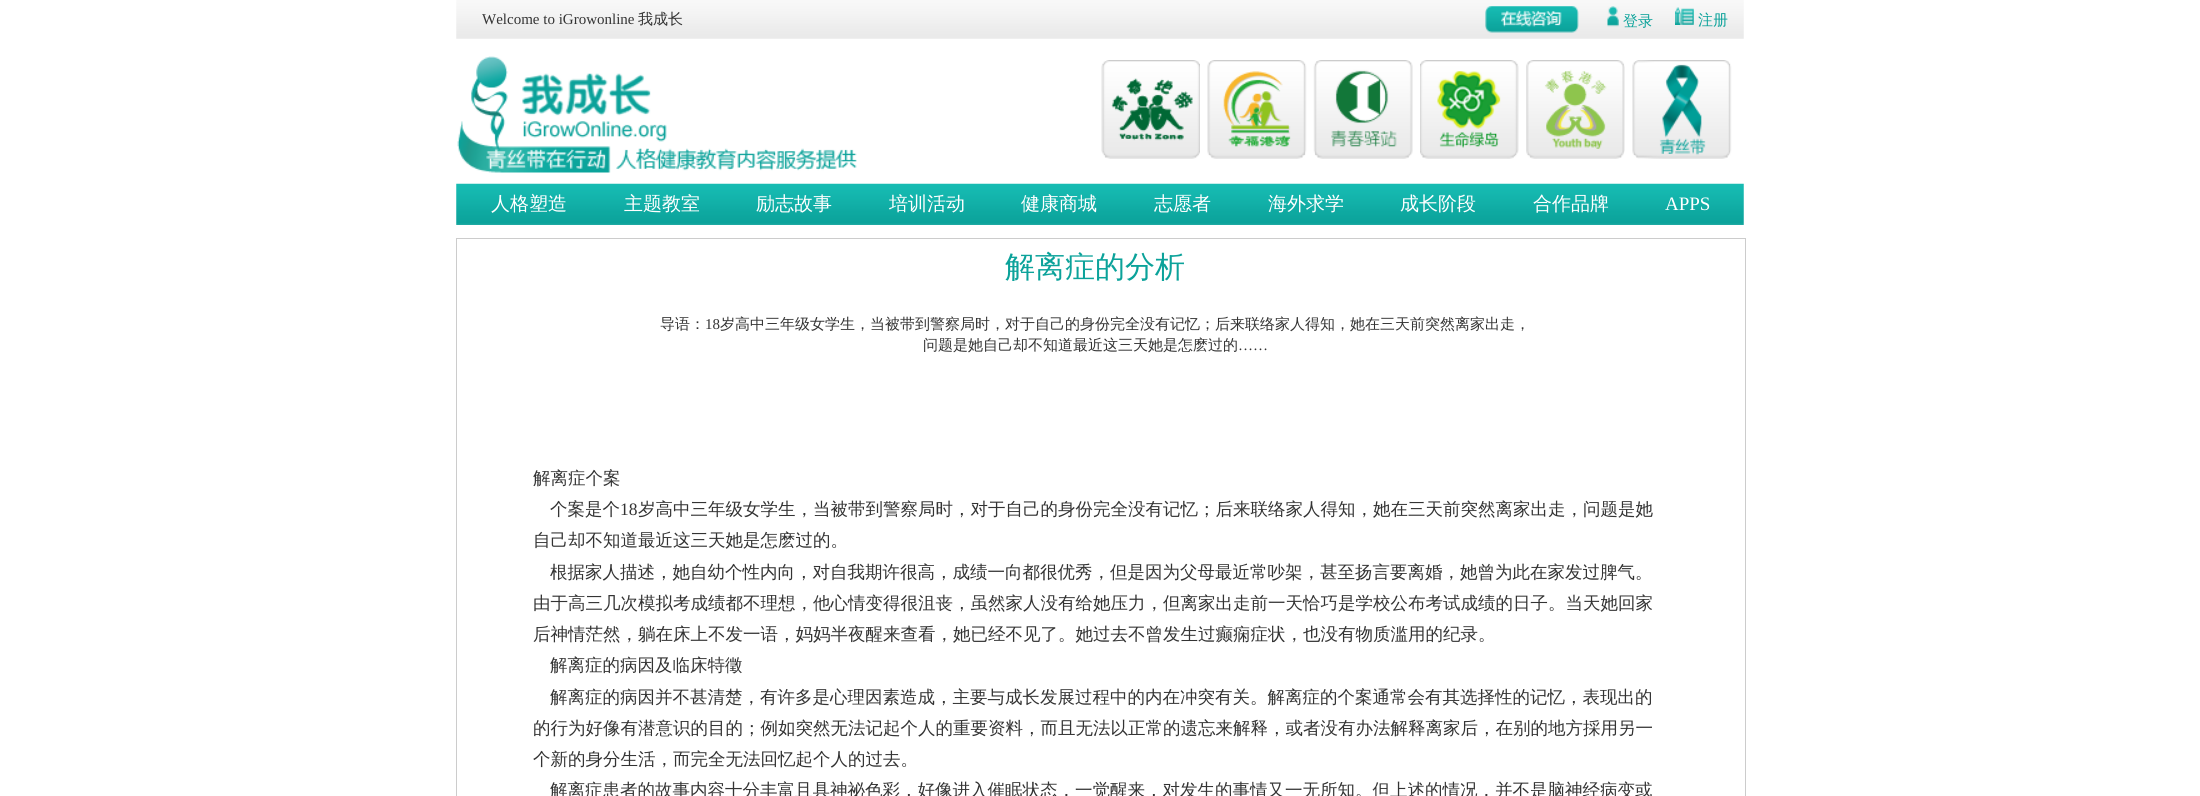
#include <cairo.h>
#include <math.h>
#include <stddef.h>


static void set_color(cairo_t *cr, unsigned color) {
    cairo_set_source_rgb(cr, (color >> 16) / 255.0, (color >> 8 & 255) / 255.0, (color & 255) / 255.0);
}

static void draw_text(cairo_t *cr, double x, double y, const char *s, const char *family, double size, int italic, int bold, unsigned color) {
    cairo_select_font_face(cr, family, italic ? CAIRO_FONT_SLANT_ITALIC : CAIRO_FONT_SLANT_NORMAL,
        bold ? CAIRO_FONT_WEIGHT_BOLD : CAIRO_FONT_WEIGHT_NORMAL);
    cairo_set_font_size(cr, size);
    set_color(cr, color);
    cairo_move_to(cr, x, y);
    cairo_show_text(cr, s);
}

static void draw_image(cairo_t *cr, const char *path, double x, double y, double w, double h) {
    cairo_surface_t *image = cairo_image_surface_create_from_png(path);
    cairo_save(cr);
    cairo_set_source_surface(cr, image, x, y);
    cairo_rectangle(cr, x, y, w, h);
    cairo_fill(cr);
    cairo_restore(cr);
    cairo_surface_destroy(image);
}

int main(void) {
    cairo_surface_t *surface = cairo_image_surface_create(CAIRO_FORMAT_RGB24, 2200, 796);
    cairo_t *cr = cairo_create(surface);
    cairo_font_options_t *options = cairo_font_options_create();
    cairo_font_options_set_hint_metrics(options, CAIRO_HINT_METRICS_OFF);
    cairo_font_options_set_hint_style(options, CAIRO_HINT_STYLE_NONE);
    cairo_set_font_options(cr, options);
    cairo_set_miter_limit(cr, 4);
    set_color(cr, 0xFFFFFF);
    cairo_paint(cr);
    draw_image(cr, "assets/img1.png", 456, 0, 1288, 39);
    draw_text(cr, 482, 24, "Welcome to iGrowonline", "Liberation Serif", 15, 0, 0, 0x333333);
    draw_text(cr, 638, 24, "我成长", "WenQuanYi Zen Hei Medium", 15, 0, 0, 0x333333);
    draw_image(cr, "assets/img2.png", 1485, 6, 94, 27);
    draw_image(cr, "assets/img3.png", 1607, 6, 12, 21);
    draw_text(cr, 1623, 26, "登录", "WenQuanYi Zen Hei Medium", 15, 0, 0, 0x0BA29A);
    draw_image(cr, "assets/img4.png", 1675, 7, 19, 18);
    draw_text(cr, 1698, 25, "注册", "WenQuanYi Zen Hei Medium", 15, 0, 0, 0x0BA29A);
    draw_image(cr, "assets/img5.png", 457, 56, 400, 117);
    draw_image(cr, "assets/img6.png", 1101, 60, 99, 99);
    draw_image(cr, "assets/img7.png", 1207, 60, 100, 99);
    draw_image(cr, "assets/img8.png", 1313, 60, 100, 99);
    draw_image(cr, "assets/img9.png", 1420, 60, 99, 99);
    draw_image(cr, "assets/img10.png", 1526, 60, 99, 99);
    draw_image(cr, "assets/img11.png", 1632, 60, 100, 99);
    draw_image(cr, "assets/img12.png", 456, 183, 1288, 42);
    draw_text(cr, 491, 210, "人格塑造", "WenQuanYi Zen Hei Medium", 19, 0, 0, 0xFFFFFF);
    draw_text(cr, 624, 210, "主题教室", "WenQuanYi Zen Hei Medium", 19, 0, 0, 0xFFFFFF);
    draw_text(cr, 756, 210, "励志故事", "WenQuanYi Zen Hei Medium", 19, 0, 0, 0xFFFFFF);
    draw_text(cr, 889, 210, "培训活动", "WenQuanYi Zen Hei Medium", 19, 0, 0, 0xFFFFFF);
    draw_text(cr, 1021, 210, "健康商城", "WenQuanYi Zen Hei Medium", 19, 0, 0, 0xFFFFFF);
    draw_text(cr, 1154, 210, "志愿者", "WenQuanYi Zen Hei Medium", 19, 0, 0, 0xFFFFFF);
    draw_text(cr, 1268, 210, "海外求学", "WenQuanYi Zen Hei Medium", 19, 0, 0, 0xFFFFFF);
    draw_text(cr, 1400, 210, "成长阶段", "WenQuanYi Zen Hei Medium", 19, 0, 0, 0xFFFFFF);
    draw_text(cr, 1533, 210, "合作品牌", "WenQuanYi Zen Hei Medium", 19, 0, 0, 0xFFFFFF);
    draw_text(cr, 1665, 210, "APPS", "Liberation Serif", 19, 0, 0, 0xFFFFFF);
    cairo_rectangle(cr, 456.5, 238.5, 1289, 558);
    set_color(cr, 0xCCCCCC);
    cairo_set_line_width(cr, 1);
    cairo_stroke(cr);
    draw_text(cr, 1005, 277, "解离症的分析", "WenQuanYi Zen Hei Medium", 30, 0, 0, 0x0BA29A);
    draw_text(cr, 660, 329, "导语：", "WenQuanYi Zen Hei Medium", 15, 0, 0, 0x333333);
    draw_text(cr, 705, 329, "18", "Liberation Serif", 15, 0, 0, 0x333333);
    draw_text(cr, 720, 329, "岁高中三年级女学生，当被带到警察局时，对于自己的身份完全没有记忆；后来联络家人得知，她在三天前突然离家出走，", "WenQuanYi Zen Hei Medium", 15, 0, 0, 0x333333);
    draw_text(cr, 923, 350, "问题是她自己却不知道最近这三天她是怎麽过的", "WenQuanYi Zen Hei Medium", 15, 0, 0, 0x333333);
    draw_text(cr, 1238, 350, "……", "Liberation Serif", 15, 0, 0, 0x333333);
    draw_text(cr, 533, 484, "解离症个案", "WenQuanYi Zen Hei Medium", 17.5, 0, 0, 0x333333);
    draw_text(cr, 550, 515, "个案是个", "WenQuanYi Zen Hei Medium", 17.5, 0, 0, 0x333333);
    draw_text(cr, 620, 515, "18", "Liberation Serif", 17.5, 0, 0, 0x333333);
    draw_text(cr, 638, 515, "岁高中三年级女学生，当被带到警察局时，对于自己的身份完全没有记忆；后来联络家人得知，她在三天前突然离家出走，问题是她", "WenQuanYi Zen Hei Medium", 17.5, 0, 0, 0x333333);
    draw_text(cr, 533, 546, "自己却不知道最近这三天她是怎麽过的。", "WenQuanYi Zen Hei Medium", 17.5, 0, 0, 0x333333);
    draw_text(cr, 550, 578, "根据家人描述，她自幼个性内向，对自我期许很高，成绩一向都很优秀，但是因为父母最近常吵架，甚至扬言要离婚，她曾为此在家发过脾气。", "WenQuanYi Zen Hei Medium", 17.5, 0, 0, 0x333333);
    draw_text(cr, 533, 609, "由于高三几次模拟考成绩都不理想，他心情变得很沮丧，虽然家人没有给她压力，但离家出走前一天恰巧是学校公布考试成绩的日子。当天她回家", "WenQuanYi Zen Hei Medium", 17.5, 0, 0, 0x333333);
    draw_text(cr, 533, 640, "后神情茫然，躺在床上不发一语，妈妈半夜醒来查看，她已经不见了。她过去不曾发生过癫痫症状，也没有物质滥用的纪录。", "WenQuanYi Zen Hei Medium", 17.5, 0, 0, 0x333333);
    draw_text(cr, 550, 671, "解离症的病因及临床特徵", "WenQuanYi Zen Hei Medium", 17.5, 0, 0, 0x333333);
    draw_text(cr, 550, 703, "解离症的病因并不甚清楚，有许多是心理因素造成，主要与成长发展过程中的内在冲突有关。解离症的个案通常会有其选择性的记忆，表现出的", "WenQuanYi Zen Hei Medium", 17.5, 0, 0, 0x333333);
    draw_text(cr, 533, 734, "的行为好像有潜意识的目的；例如突然无法记起个人的重要资料，而且无法以正常的遗忘来解释，或者没有办法解释离家后，在别的地方採用另一", "WenQuanYi Zen Hei Medium", 17.5, 0, 0, 0x333333);
    draw_text(cr, 533, 765, "个新的身分生活，而完全无法回忆起个人的过去。", "WenQuanYi Zen Hei Medium", 17.5, 0, 0, 0x333333);
    draw_text(cr, 550, 796, "解离症患者的故事内容十分丰富且具神祕色彩，好像进入催眠状态，一觉醒来，对发生的事情又一无所知。但上述的情况，并不是脑神经病变或", "WenQuanYi Zen Hei Medium", 17.5, 0, 0, 0x333333);
    cairo_surface_write_to_png(surface, "output.png");
    cairo_font_options_destroy(options);
    cairo_destroy(cr);
    cairo_surface_destroy(surface);
    return 0;
}
